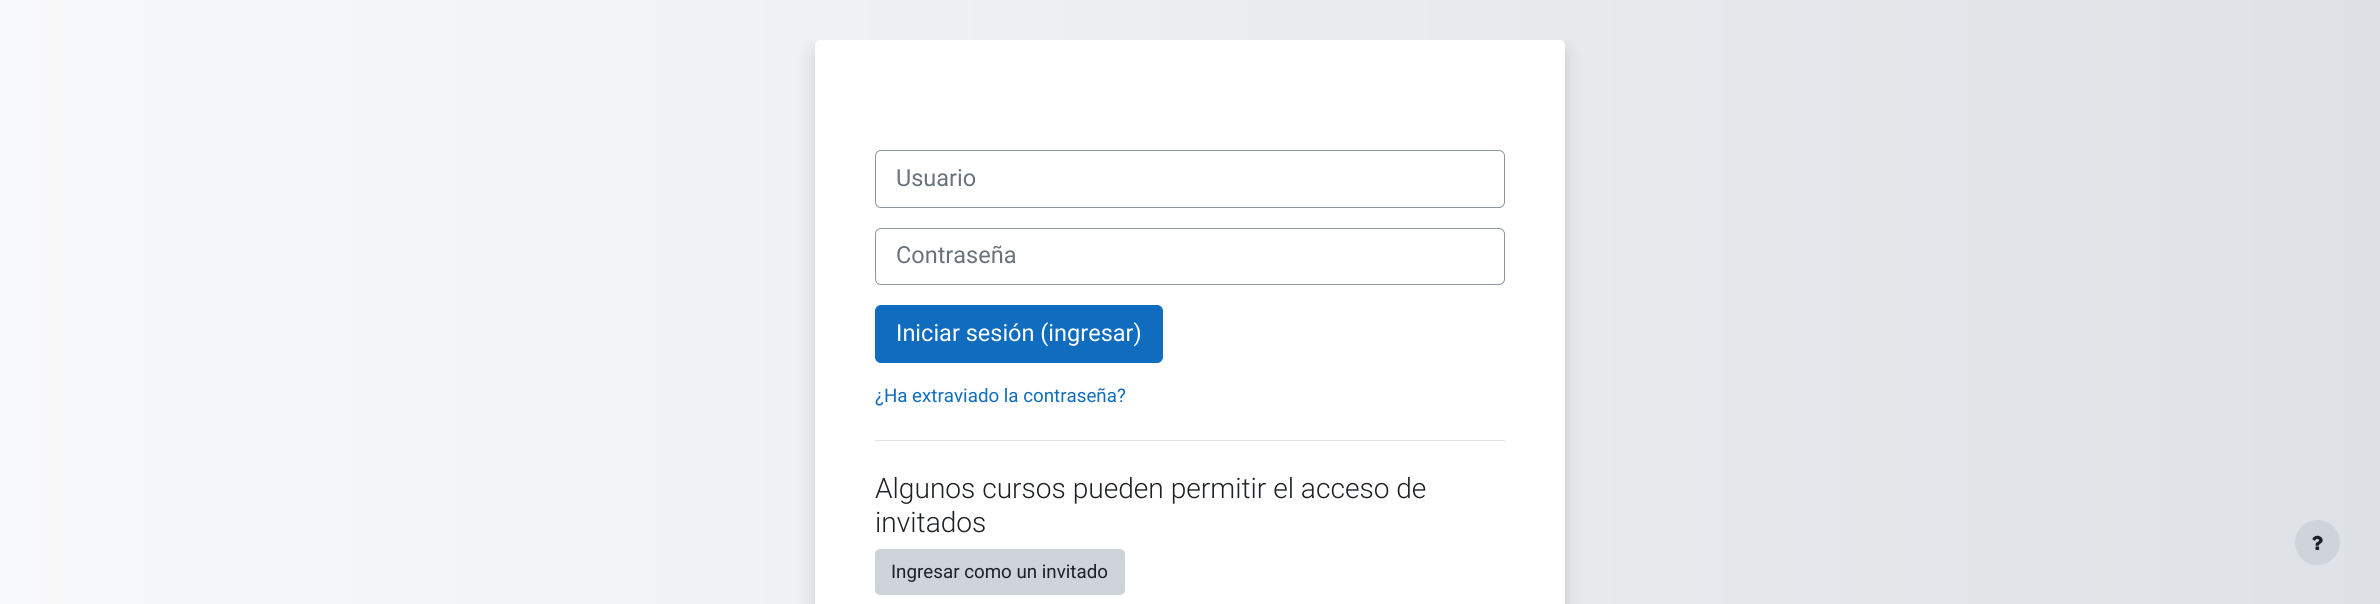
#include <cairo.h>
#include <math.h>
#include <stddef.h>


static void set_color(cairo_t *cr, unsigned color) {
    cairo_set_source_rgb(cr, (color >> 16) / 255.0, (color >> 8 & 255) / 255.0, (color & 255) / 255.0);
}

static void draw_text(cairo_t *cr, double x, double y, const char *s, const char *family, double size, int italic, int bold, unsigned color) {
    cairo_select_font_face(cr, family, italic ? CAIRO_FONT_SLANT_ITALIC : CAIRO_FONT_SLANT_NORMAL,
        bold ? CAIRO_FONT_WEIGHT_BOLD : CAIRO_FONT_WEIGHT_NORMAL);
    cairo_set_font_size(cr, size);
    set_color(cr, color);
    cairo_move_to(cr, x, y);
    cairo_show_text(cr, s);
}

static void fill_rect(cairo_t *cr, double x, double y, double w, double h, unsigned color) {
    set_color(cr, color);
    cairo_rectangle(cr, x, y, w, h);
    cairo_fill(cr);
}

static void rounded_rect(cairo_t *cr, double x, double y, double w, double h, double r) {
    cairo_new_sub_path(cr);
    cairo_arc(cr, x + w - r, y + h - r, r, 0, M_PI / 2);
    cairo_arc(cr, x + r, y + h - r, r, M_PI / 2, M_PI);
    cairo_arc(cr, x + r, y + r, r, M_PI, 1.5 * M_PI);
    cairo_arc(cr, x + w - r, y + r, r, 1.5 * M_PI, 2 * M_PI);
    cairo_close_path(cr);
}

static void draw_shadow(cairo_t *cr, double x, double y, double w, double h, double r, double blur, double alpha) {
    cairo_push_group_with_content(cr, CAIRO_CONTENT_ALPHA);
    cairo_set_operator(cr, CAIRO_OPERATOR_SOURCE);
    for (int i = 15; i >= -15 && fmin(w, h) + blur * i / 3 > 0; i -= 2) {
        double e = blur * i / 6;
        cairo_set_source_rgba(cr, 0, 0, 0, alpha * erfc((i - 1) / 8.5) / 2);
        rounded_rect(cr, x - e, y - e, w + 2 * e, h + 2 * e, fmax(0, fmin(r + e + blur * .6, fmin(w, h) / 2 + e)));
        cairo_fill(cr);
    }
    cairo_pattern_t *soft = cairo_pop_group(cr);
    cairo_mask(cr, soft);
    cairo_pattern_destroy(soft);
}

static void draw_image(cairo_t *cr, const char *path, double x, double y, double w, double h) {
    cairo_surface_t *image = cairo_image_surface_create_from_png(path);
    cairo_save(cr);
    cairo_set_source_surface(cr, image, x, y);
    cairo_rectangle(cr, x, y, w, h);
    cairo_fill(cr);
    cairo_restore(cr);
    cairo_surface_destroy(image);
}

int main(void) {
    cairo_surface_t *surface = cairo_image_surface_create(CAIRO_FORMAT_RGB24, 2380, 604);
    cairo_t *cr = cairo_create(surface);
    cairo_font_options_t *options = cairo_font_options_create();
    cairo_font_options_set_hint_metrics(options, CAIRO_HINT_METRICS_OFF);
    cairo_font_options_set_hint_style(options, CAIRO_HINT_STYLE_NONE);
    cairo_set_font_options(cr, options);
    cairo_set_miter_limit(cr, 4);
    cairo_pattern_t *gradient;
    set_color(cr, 0xFFFFFF);
    cairo_paint(cr);
    gradient = cairo_pattern_create_linear(0, 402, 2380, 402);
    cairo_pattern_add_color_stop_rgba(gradient, 0, 0.973, 0.976, 0.98, 1);
    cairo_pattern_add_color_stop_rgba(gradient, 1, 0.871, 0.886, 0.902, 1);
    cairo_set_source(cr, gradient);
    cairo_pattern_destroy(gradient);
    cairo_rectangle(cr, 0, 0, 2380, 604);
    cairo_fill(cr);
    cairo_save(cr);
    cairo_rectangle(cr, 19, 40, 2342, 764);
    cairo_clip(cr);
    set_color(cr, 0x000000);
    draw_shadow(cr, 815, 50, 750, 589, 5, 10, 0.15);
    cairo_restore(cr);
    set_color(cr, 0xFFFFFF);
    rounded_rect(cr, 815, 40, 750, 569, 5);
    cairo_fill(cr);
    rounded_rect(cr, 875.5, 150.5, 629, 57, 5.5);
    set_color(cr, 0x8F959E);
    cairo_set_line_width(cr, 1);
    cairo_stroke(cr);
    draw_text(cr, 896, 186, "Usuario", "Roboto", 23.5, 0, 0, 0x6A737B);
    rounded_rect(cr, 875.5, 228.5, 629, 56, 5.5);
    set_color(cr, 0x8F959E);
    cairo_stroke(cr);
    draw_text(cr, 896, 263, "Contraseña", "Roboto", 23.5, 0, 0, 0x6A737B);
    set_color(cr, 0x0F6CBF);
    rounded_rect(cr, 875.5, 305.5, 287, 57, 5.5);
    cairo_fill_preserve(cr);
    cairo_stroke(cr);
    draw_text(cr, 896, 341, "Iniciar sesión (ingresar)", "Roboto", 23.5, 0, 0, 0xFFFFFF);
    draw_text(cr, 875, 402, "¿Ha extraviado la contraseña?", "Roboto", 18.75, 0, 0, 0x0F6CBF);
    fill_rect(cr, 875, 440, 630, 1, 0xDEE2E6);
    draw_text(cr, 875, 498, "Algunos cursos pueden permitir el acceso de", "Roboto Light", 28.1, 0, 0, 0x1D2125);
    draw_text(cr, 875, 532, "invitados", "Roboto Light", 28.1, 0, 0, 0x1D2125);
    set_color(cr, 0xCED4DA);
    rounded_rect(cr, 875.5, 549.5, 249, 45, 4.5);
    cairo_fill_preserve(cr);
    cairo_stroke(cr);
    draw_text(cr, 891, 578, "Ingresar como un invitado", "Roboto", 18.75, 0, 0, 0x1D2125);
    set_color(cr, 0xCED4DA);
    cairo_new_path(cr);
    cairo_arc(cr, 2317.5, 542.5, 22.5, 0, 2 * M_PI);
    cairo_fill(cr);
    draw_image(cr, "assets/img1.png", 2312, 535, 11, 15);
    cairo_surface_write_to_png(surface, "output.png");
    cairo_font_options_destroy(options);
    cairo_destroy(cr);
    cairo_surface_destroy(surface);
    return 0;
}
